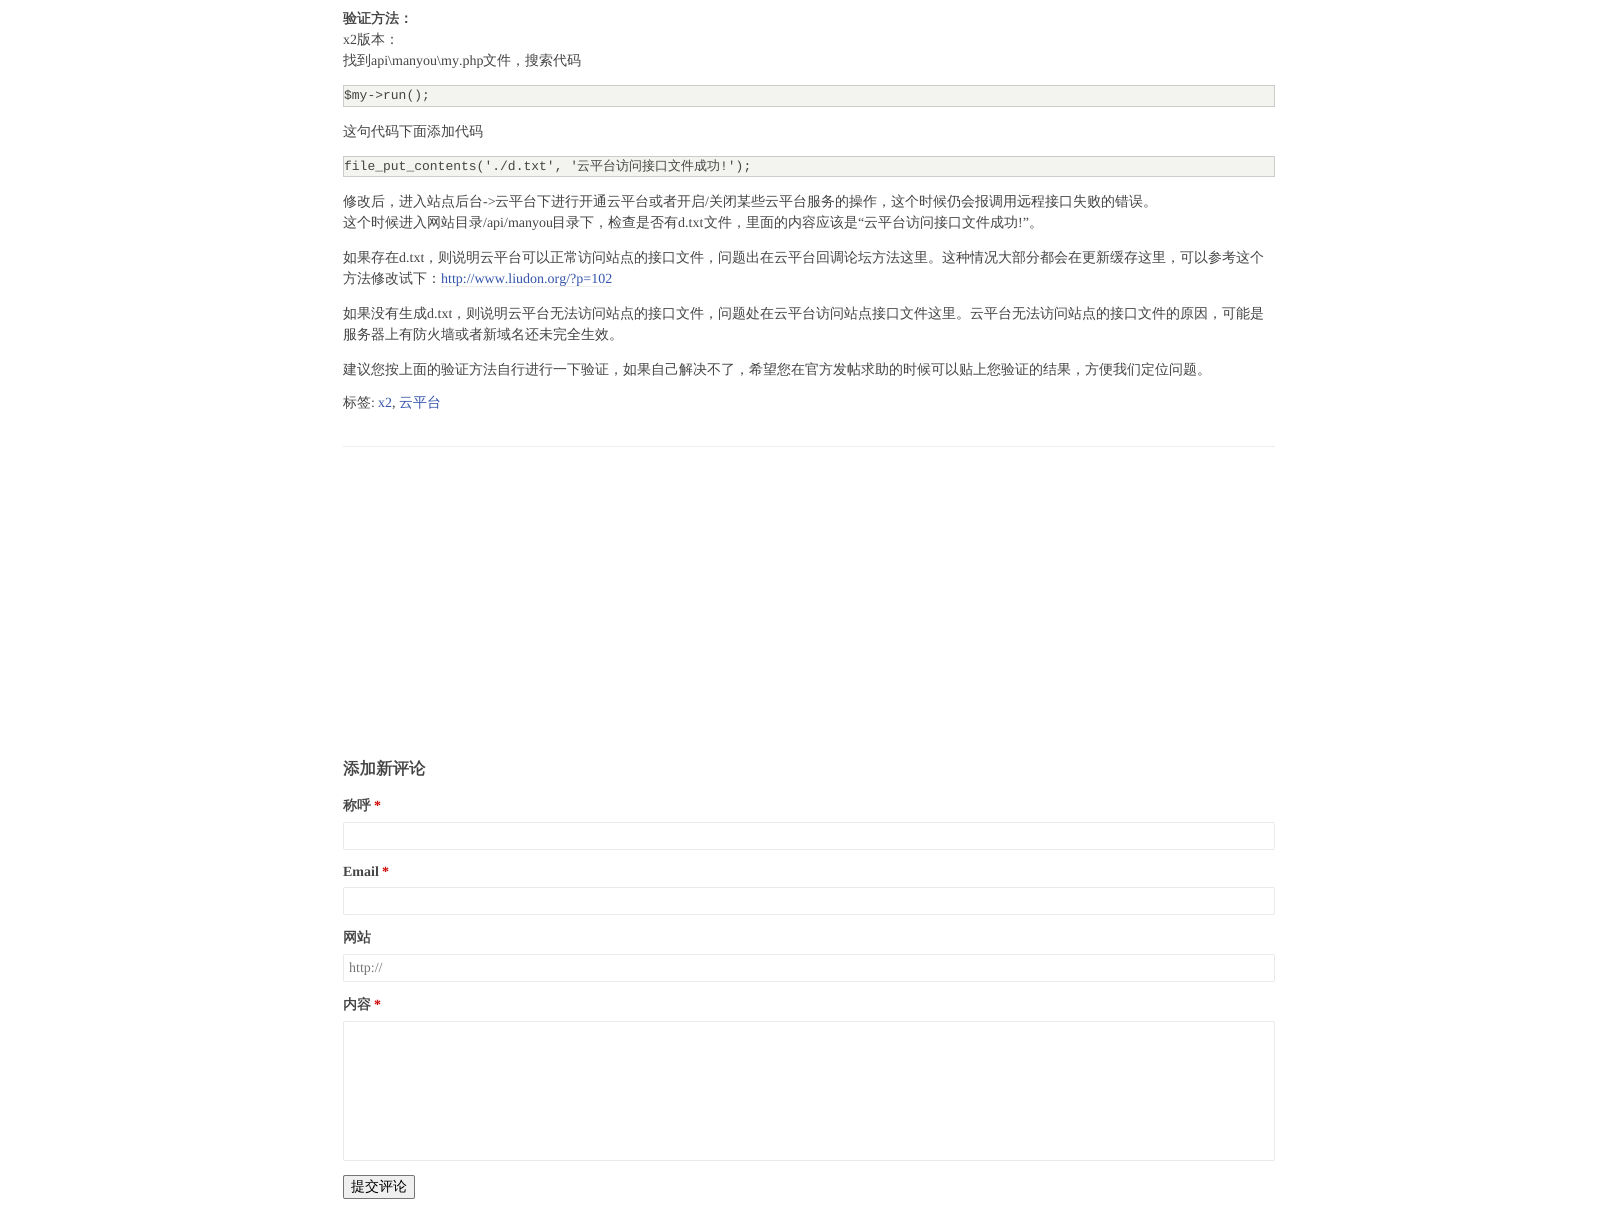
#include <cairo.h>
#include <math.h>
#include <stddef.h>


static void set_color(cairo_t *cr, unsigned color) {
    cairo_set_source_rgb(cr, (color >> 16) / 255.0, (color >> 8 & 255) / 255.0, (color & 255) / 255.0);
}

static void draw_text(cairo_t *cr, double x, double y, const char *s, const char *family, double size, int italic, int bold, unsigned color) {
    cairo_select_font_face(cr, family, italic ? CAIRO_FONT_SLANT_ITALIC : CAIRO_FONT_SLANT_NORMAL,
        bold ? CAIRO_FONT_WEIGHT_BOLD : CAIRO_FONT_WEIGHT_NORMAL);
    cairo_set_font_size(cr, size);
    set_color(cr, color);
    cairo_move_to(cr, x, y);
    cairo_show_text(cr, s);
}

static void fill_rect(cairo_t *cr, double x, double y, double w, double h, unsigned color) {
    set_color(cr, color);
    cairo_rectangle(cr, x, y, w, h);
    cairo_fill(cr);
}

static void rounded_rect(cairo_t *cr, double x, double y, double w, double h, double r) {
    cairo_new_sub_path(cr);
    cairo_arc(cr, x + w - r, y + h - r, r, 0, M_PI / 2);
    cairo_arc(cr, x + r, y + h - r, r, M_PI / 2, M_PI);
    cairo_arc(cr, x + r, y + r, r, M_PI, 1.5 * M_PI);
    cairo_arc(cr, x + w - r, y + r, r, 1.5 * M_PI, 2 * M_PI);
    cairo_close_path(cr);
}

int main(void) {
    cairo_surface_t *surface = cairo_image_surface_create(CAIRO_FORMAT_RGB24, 1617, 1219);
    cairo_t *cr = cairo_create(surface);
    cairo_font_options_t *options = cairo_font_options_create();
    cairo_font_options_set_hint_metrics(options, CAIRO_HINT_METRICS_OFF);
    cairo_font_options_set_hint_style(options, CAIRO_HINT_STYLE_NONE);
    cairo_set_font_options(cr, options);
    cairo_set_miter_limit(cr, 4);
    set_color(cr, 0xFFFFFF);
    cairo_paint(cr);
    fill_rect(cr, 343, 446, 932, 1, 0xEEEEEE);
    draw_text(cr, 343, 23, "验证方法：", "WenQuanYi Zen Hei", 14, 0, 1, 0x444444);
    draw_text(cr, 343, 44, "x2", "Liberation Serif", 14, 0, 0, 0x444444);
    draw_text(cr, 357, 44, "版本：", "WenQuanYi Zen Hei Medium", 14, 0, 0, 0x444444);
    draw_text(cr, 343, 65, "找到", "WenQuanYi Zen Hei Medium", 14, 0, 0, 0x444444);
    draw_text(cr, 371, 65, "api\\manyou\\my.php", "Liberation Serif", 14, 0, 0, 0x444444);
    draw_text(cr, 483, 65, "文件，搜索代码", "WenQuanYi Zen Hei Medium", 14, 0, 0, 0x444444);
    set_color(cr, 0xF3F3F0);
    cairo_rectangle(cr, 343.5, 85.5, 931, 21);
    cairo_fill_preserve(cr);
    set_color(cr, 0xCCCCCC);
    cairo_set_line_width(cr, 1);
    cairo_stroke(cr);
    draw_text(cr, 344, 99, "$my->run();", "Liberation Mono", 13, 0, 0, 0x444444);
    draw_text(cr, 343, 136, "这句代码下面添加代码", "WenQuanYi Zen Hei Medium", 14, 0, 0, 0x444444);
    set_color(cr, 0xF3F3F0);
    cairo_rectangle(cr, 343.5, 156.5, 931, 20);
    cairo_fill_preserve(cr);
    set_color(cr, 0xCCCCCC);
    cairo_stroke(cr);
    draw_text(cr, 344, 170, "file_put_contents('./d.txt', '", "Liberation Mono", 13, 0, 0, 0x444444);
    draw_text(cr, 577, 170, "云平台访问接口文件成功", "WenQuanYi Zen Hei Medium", 13, 0, 0, 0x444444);
    draw_text(cr, 720, 170, "!');", "Liberation Mono", 13, 0, 0, 0x444444);
    draw_text(cr, 343, 206, "修改后，进入站点后台", "WenQuanYi Zen Hei Medium", 14, 0, 0, 0x444444);
    draw_text(cr, 483, 206, "->", "Liberation Serif", 14, 0, 0, 0x444444);
    draw_text(cr, 495, 206, "云平台下进行开通云平台或者开启", "WenQuanYi Zen Hei Medium", 14, 0, 0, 0x444444);
    draw_text(cr, 705, 206, "/", "Liberation Serif", 14, 0, 0, 0x444444);
    draw_text(cr, 709, 206, "关闭某些云平台服务的操作，这个时候仍会报调用远程接口失败的错误。", "WenQuanYi Zen Hei Medium", 14, 0, 0, 0x444444);
    draw_text(cr, 343, 227, "这个时候进入网站目录", "WenQuanYi Zen Hei Medium", 14, 0, 0, 0x444444);
    draw_text(cr, 483, 227, "/api/manyou", "Liberation Serif", 14, 0, 0, 0x444444);
    draw_text(cr, 552, 227, "目录下，检查是否有", "WenQuanYi Zen Hei Medium", 14, 0, 0, 0x444444);
    draw_text(cr, 678, 227, "d.txt", "Liberation Serif", 14, 0, 0, 0x444444);
    draw_text(cr, 704, 227, "文件，里面的内容应该是", "WenQuanYi Zen Hei Medium", 14, 0, 0, 0x444444);
    draw_text(cr, 858, 227, "“", "Liberation Serif", 14, 0, 0, 0x444444);
    draw_text(cr, 864, 227, "云平台访问接口文件成功", "WenQuanYi Zen Hei Medium", 14, 0, 0, 0x444444);
    draw_text(cr, 1018, 227, "!”", "Liberation Serif", 14, 0, 0, 0x444444);
    draw_text(cr, 1029, 227, "。", "WenQuanYi Zen Hei Medium", 14, 0, 0, 0x444444);
    draw_text(cr, 343, 262, "如果存在", "WenQuanYi Zen Hei Medium", 14, 0, 0, 0x444444);
    draw_text(cr, 399, 262, "d.txt", "Liberation Serif", 14, 0, 0, 0x444444);
    draw_text(cr, 424, 262, "，则说明云平台可以正常访问站点的接口文件，问题出在云平台回调论坛方法这里。这种情况大部分都会在更新缓存这里，可以参考这个", "WenQuanYi Zen Hei Medium", 14, 0, 0, 0x444444);
    draw_text(cr, 343, 283, "方法修改试下：", "WenQuanYi Zen Hei Medium", 14, 0, 0, 0x444444);
    draw_text(cr, 441, 283, "http://www.liudon.org/?p=102", "Liberation Serif", 14, 0, 0, 0x3354AA);
    fill_rect(cr, 441, 286, 171, 1, 0xEEEEEE);
    draw_text(cr, 343, 318, "如果没有生成", "WenQuanYi Zen Hei Medium", 14, 0, 0, 0x444444);
    draw_text(cr, 427, 318, "d.txt", "Liberation Serif", 14, 0, 0, 0x444444);
    draw_text(cr, 452, 318, "，则说明云平台无法访问站点的接口文件，问题处在云平台访问站点接口文件这里。云平台无法访问站点的接口文件的原因，可能是", "WenQuanYi Zen Hei Medium", 14, 0, 0, 0x444444);
    draw_text(cr, 343, 339, "服务器上有防火墙或者新域名还未完全生效。", "WenQuanYi Zen Hei Medium", 14, 0, 0, 0x444444);
    draw_text(cr, 343, 374, "建议您按上面的验证方法自行进行一下验证，如果自己解决不了，希望您在官方发帖求助的时候可以贴上您验证的结果，方便我们定位问题。", "WenQuanYi Zen Hei Medium", 14, 0, 0, 0x444444);
    draw_text(cr, 343, 407, "标签", "WenQuanYi Zen Hei Medium", 14, 0, 0, 0x444444);
    draw_text(cr, 371, 407, ":", "Liberation Serif", 14, 0, 0, 0x444444);
    draw_text(cr, 378, 407, "x2", "Liberation Serif", 14, 0, 0, 0x3354AA);
    draw_text(cr, 392, 407, ",", "Liberation Serif", 14, 0, 0, 0x444444);
    draw_text(cr, 399, 407, "云平台", "WenQuanYi Zen Hei Medium", 14, 0, 0, 0x3354AA);
    draw_text(cr, 343, 774, "添加新评论", "WenQuanYi Zen Hei", 16.5, 0, 1, 0x444444);
    draw_text(cr, 343, 810, "称呼", "WenQuanYi Zen Hei", 14, 0, 1, 0x444444);
    draw_text(cr, 374, 810, "*", "Liberation Serif", 14, 0, 1, 0xCC0000);
    rounded_rect(cr, 343.5, 822.5, 931, 27, 1.5);
    set_color(cr, 0xE9E9E9);
    cairo_stroke(cr);
    draw_text(cr, 343, 876, "Email", "Liberation Serif", 14, 0, 1, 0x444444);
    draw_text(cr, 382, 876, "*", "Liberation Serif", 14, 0, 1, 0xCC0000);
    rounded_rect(cr, 343.5, 887.5, 931, 27, 1.5);
    set_color(cr, 0xE9E9E9);
    cairo_stroke(cr);
    draw_text(cr, 343, 942, "网站", "WenQuanYi Zen Hei", 14, 0, 1, 0x444444);
    rounded_rect(cr, 343.5, 954.5, 931, 27, 1.5);
    set_color(cr, 0xE9E9E9);
    cairo_stroke(cr);
    draw_text(cr, 349, 972, "http://", "Liberation Serif", 14, 0, 0, 0x757575);
    draw_text(cr, 343, 1009, "内容", "WenQuanYi Zen Hei", 14, 0, 1, 0x444444);
    draw_text(cr, 374, 1009, "*", "Liberation Serif", 14, 0, 1, 0xCC0000);
    rounded_rect(cr, 343.5, 1021.5, 931, 139, 1.5);
    set_color(cr, 0xE9E9E9);
    cairo_stroke(cr);
    set_color(cr, 0xEFEFEF);
    rounded_rect(cr, 343.5, 1175.5, 71, 23, 1.5);
    cairo_fill_preserve(cr);
    set_color(cr, 0x767676);
    cairo_stroke(cr);
    draw_text(cr, 351, 1191, "提交评论", "WenQuanYi Zen Hei Medium", 14, 0, 0, 0x000000);
    cairo_surface_write_to_png(surface, "output.png");
    cairo_font_options_destroy(options);
    cairo_destroy(cr);
    cairo_surface_destroy(surface);
    return 0;
}
